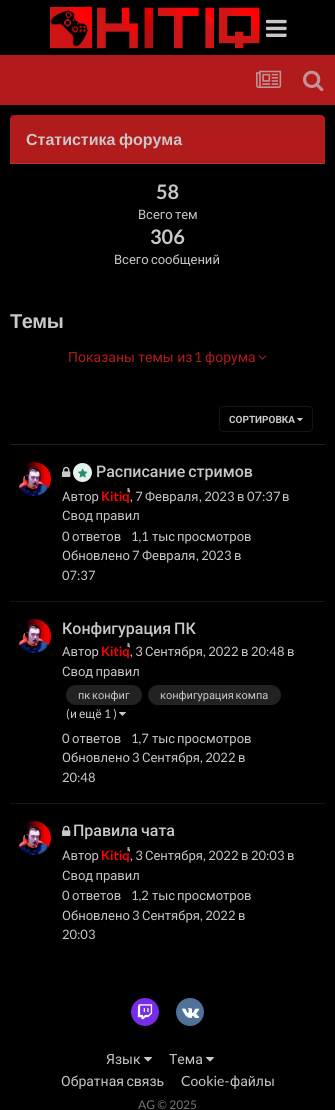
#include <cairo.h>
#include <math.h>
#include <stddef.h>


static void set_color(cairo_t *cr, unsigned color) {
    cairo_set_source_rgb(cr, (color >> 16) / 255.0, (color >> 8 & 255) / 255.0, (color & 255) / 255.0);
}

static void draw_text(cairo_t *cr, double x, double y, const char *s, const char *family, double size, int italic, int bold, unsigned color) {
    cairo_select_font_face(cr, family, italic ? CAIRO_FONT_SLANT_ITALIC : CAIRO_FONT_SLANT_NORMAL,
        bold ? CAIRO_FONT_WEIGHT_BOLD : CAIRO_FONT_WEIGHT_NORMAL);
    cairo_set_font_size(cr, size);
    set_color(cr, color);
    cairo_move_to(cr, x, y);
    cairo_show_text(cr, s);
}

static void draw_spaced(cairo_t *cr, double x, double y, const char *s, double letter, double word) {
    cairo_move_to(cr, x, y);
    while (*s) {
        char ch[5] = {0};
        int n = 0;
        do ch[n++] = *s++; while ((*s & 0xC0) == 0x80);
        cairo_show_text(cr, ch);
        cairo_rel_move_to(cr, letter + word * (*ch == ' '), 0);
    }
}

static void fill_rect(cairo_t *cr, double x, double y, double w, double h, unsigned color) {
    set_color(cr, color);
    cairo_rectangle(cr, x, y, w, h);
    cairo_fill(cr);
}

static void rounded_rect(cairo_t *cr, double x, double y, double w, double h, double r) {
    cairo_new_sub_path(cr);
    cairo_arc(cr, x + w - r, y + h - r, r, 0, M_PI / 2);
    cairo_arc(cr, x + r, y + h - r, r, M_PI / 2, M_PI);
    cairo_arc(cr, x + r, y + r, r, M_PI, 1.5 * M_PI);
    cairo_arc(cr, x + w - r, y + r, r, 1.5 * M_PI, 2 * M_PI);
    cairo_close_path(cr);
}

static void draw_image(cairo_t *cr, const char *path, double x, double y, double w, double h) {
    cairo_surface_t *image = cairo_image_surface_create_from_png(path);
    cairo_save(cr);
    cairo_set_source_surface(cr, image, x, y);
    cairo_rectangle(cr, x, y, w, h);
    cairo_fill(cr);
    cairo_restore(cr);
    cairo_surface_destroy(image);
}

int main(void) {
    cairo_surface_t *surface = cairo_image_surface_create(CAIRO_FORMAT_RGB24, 335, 1110);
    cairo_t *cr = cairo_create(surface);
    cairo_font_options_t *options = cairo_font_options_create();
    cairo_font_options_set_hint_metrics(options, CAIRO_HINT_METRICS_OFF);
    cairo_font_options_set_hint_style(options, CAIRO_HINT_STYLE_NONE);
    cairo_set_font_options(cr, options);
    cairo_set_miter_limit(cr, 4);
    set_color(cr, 0x000000);
    cairo_paint(cr);
    draw_image(cr, "assets/img1.png", 49, 6, 211, 43);
    draw_image(cr, "assets/img2.png", 266, 19, 21, 18);
    fill_rect(cr, 0, 55, 335, 50, 0xB11B1C);
    draw_image(cr, "assets/img3.png", 256, 70, 26, 18);
    draw_image(cr, "assets/img4.png", 303, 70, 21, 22);
    cairo_new_path(cr);
    cairo_move_to(cr, 14, 115);
    cairo_line_to(cr, 321, 115);
    cairo_curve_to(cr, 323, 115, 325, 117, 325, 119);
    cairo_line_to(cr, 325, 164);
    cairo_line_to(cr, 10, 164);
    cairo_line_to(cr, 10, 119);
    cairo_curve_to(cr, 10, 117, 12, 115, 14, 115);
    cairo_close_path(cr);
    cairo_fill(cr);
    fill_rect(cr, 10, 163, 315, 1, 0xB53536);
    cairo_select_font_face(cr, "Liberation Sans", CAIRO_FONT_SLANT_NORMAL, CAIRO_FONT_WEIGHT_BOLD);
    cairo_set_font_size(cr, 16);
    set_color(cr, 0xCAC7CA);
    draw_spaced(cr, 26, 145, "Статистика форума", 0, -1);
    draw_text(cr, 156, 199, "58", "Lato", 20, 0, 1, 0xCAC7CA);
    cairo_select_font_face(cr, "Roboto", CAIRO_FONT_SLANT_NORMAL, CAIRO_FONT_WEIGHT_NORMAL);
    cairo_set_font_size(cr, 13);
    draw_spaced(cr, 138, 219, "Всего тем", 0, -1);
    draw_text(cr, 150, 244, "306", "Lato", 20, 0, 1, 0xCAC7CA);
    cairo_select_font_face(cr, "Roboto", CAIRO_FONT_SLANT_NORMAL, CAIRO_FONT_WEIGHT_NORMAL);
    cairo_set_font_size(cr, 13);
    draw_spaced(cr, 114, 264, "Всего сообщений", 0, -1);
    cairo_select_font_face(cr, "Liberation Sans", CAIRO_FONT_SLANT_NORMAL, CAIRO_FONT_WEIGHT_BOLD);
    cairo_set_font_size(cr, 20);
    draw_spaced(cr, 10, 328, "Темы", -0.5, 0);
    draw_text(cr, 68, 362, "Показаны темы из", "Roboto", 14, 0, 0, 0xB11B1C);
    draw_text(cr, 194, 362, "1", "Lato", 14, 0, 0, 0xB11B1C);
    draw_text(cr, 205, 362, "форума", "Roboto", 14, 0, 0, 0xB11B1C);
    draw_image(cr, "assets/img5.png", 258, 355, 9, 5);
    fill_rect(cr, 10, 444, 315, 1, 0x1E1E1E);
    draw_image(cr, "assets/img6.png", 297, 418, 6, 4);
    rounded_rect(cr, 219.5, 406.5, 93, 25, 3.5);
    set_color(cr, 0x141414);
    cairo_set_line_width(cr, 1);
    cairo_stroke(cr);
    draw_text(cr, 229, 423, "СОРТИРОВКА", "Roboto", 10, 0, 1, 0xCAC7CA);
    fill_rect(cr, 10, 601, 315, 1, 0x141414);
    draw_image(cr, "assets/img7.png", 18, 462, 33, 34);
    draw_image(cr, "assets/img8.png", 62, 466, 9, 11);
    set_color(cr, 0xE3F3EC);
    cairo_arc(cr, 82.5, 472.5, 9.5, 0, 2 * M_PI);
    cairo_fill(cr);
    draw_image(cr, "assets/img9.png", 78, 468, 10, 10);
    cairo_select_font_face(cr, "Roboto Medium", CAIRO_FONT_SLANT_NORMAL, CAIRO_FONT_WEIGHT_NORMAL);
    cairo_set_font_size(cr, 16);
    set_color(cr, 0xCAC7CA);
    draw_spaced(cr, 96, 477, "Расписание стримов", 0, -1);
    draw_text(cr, 62, 501, "Автор", "Roboto", 13, 0, 0, 0xCAC7CA);
    draw_image(cr, "assets/img10.png", 117, 488, 13, 8);
    draw_text(cr, 101, 501, "Kitiq", "Lato", 13, 0, 1, 0xFF0000);
    draw_text(cr, 130, 501, ", 7", "Lato", 13, 0, 0, 0xCAC7CA);
    draw_text(cr, 145, 501, "Февраля", "Roboto", 13, 0, 0, 0xCAC7CA);
    draw_text(cr, 199, 501, ", 2023", "Lato", 13, 0, 0, 0xCAC7CA);
    draw_text(cr, 237, 501, "в", "Roboto", 13, 0, 0, 0xCAC7CA);
    draw_text(cr, 247, 501, "07:37", "Lato", 13, 0, 0, 0xCAC7CA);
    draw_text(cr, 282, 501, "в", "Roboto", 13, 0, 0, 0xCAC7CA);
    draw_spaced(cr, 62, 520, "Свод правил", 0, -1);
    draw_text(cr, 62, 541, "0", "Lato", 13, 0, 0, 0xCAC7CA);
    draw_text(cr, 72, 541, "ответов", "Roboto", 13, 0, 0, 0xCAC7CA);
    draw_text(cr, 131, 541, "1,1", "Lato", 13, 0, 0, 0xCAC7CA);
    draw_text(cr, 152, 541, "тыс", "Roboto", 13, 0, 0, 0xCAC7CA);
    draw_text(cr, 177, 541, "просмотров", "Roboto", 13, 0, 0, 0xCAC7CA);
    draw_text(cr, 62, 560, "Обновлено", "Roboto", 13, 0, 0, 0xCAC7CA);
    draw_text(cr, 132, 560, "7", "Lato", 13, 0, 0, 0xCAC7CA);
    draw_text(cr, 142, 560, "Февраля", "Roboto", 13, 0, 0, 0xCAC7CA);
    draw_text(cr, 196, 560, ", 2023", "Lato", 13, 0, 0, 0xCAC7CA);
    draw_text(cr, 234, 560, "в", "Roboto", 13, 0, 0, 0xCAC7CA);
    draw_text(cr, 62, 580, "07:37", "Lato", 13, 0, 0, 0xCAC7CA);
    fill_rect(cr, 10, 803, 315, 1, 0x141414);
    draw_image(cr, "assets/img7.png", 18, 619, 33, 34);
    cairo_select_font_face(cr, "Roboto Medium", CAIRO_FONT_SLANT_NORMAL, CAIRO_FONT_WEIGHT_NORMAL);
    cairo_set_font_size(cr, 16);
    set_color(cr, 0xCAC7CA);
    draw_spaced(cr, 62, 634, "Конфигурация ПК", 0, -1);
    draw_text(cr, 62, 656, "Автор", "Roboto", 13, 0, 0, 0xCAC7CA);
    draw_image(cr, "assets/img10.png", 117, 643, 13, 8);
    draw_text(cr, 101, 656, "Kitiq", "Lato", 13, 0, 1, 0xFF0000);
    draw_text(cr, 130, 656, ", 3", "Lato", 13, 0, 0, 0xCAC7CA);
    draw_text(cr, 145, 656, "Сентября", "Roboto", 13, 0, 0, 0xCAC7CA);
    draw_text(cr, 203, 656, ", 2022", "Lato", 13, 0, 0, 0xCAC7CA);
    draw_text(cr, 241, 656, "в", "Roboto", 13, 0, 0, 0xCAC7CA);
    draw_text(cr, 251, 656, "20:48", "Lato", 13, 0, 0, 0xCAC7CA);
    draw_text(cr, 287, 656, "в", "Roboto", 13, 0, 0, 0xCAC7CA);
    draw_spaced(cr, 62, 676, "Свод правил", 0, -1);
    set_color(cr, 0x222222);
    rounded_rect(cr, 66, 685, 76, 20, 10);
    cairo_fill(cr);
    cairo_set_font_size(cr, 11);
    set_color(cr, 0xCAC7CA);
    draw_spaced(cr, 78, 699, "пк конфиг", 0, -1);
    set_color(cr, 0x222222);
    rounded_rect(cr, 148, 685, 133, 20, 10);
    cairo_fill(cr);
    set_color(cr, 0xCAC7CA);
    draw_spaced(cr, 160, 699, "конфигурация компа", 0, -1);
    draw_text(cr, 66, 718, "(", "Lato", 12, 0, 0, 0xCAC7CA);
    draw_text(cr, 70, 718, "и", "Roboto", 12, 0, 0, 0xCAC7CA);
    draw_text(cr, 79, 718, "ещё", "Roboto", 12, 0, 0, 0xCAC7CA);
    draw_text(cr, 104, 718, "1 )", "Lato", 12, 0, 0, 0xCAC7CA);
    draw_image(cr, "assets/img11.png", 119, 712, 7, 4);
    draw_text(cr, 62, 743, "0", "Lato", 13, 0, 0, 0xCAC7CA);
    draw_text(cr, 72, 743, "ответов", "Roboto", 13, 0, 0, 0xCAC7CA);
    draw_text(cr, 131, 743, "1,7", "Lato", 13, 0, 0, 0xCAC7CA);
    draw_text(cr, 152, 743, "тыс", "Roboto", 13, 0, 0, 0xCAC7CA);
    draw_text(cr, 177, 743, "просмотров", "Roboto", 13, 0, 0, 0xCAC7CA);
    draw_text(cr, 62, 762, "Обновлено", "Roboto", 13, 0, 0, 0xCAC7CA);
    draw_text(cr, 132, 762, "3", "Lato", 13, 0, 0, 0xCAC7CA);
    draw_text(cr, 142, 762, "Сентября", "Roboto", 13, 0, 0, 0xCAC7CA);
    draw_text(cr, 200, 762, ", 2022", "Lato", 13, 0, 0, 0xCAC7CA);
    draw_text(cr, 238, 762, "в", "Roboto", 13, 0, 0, 0xCAC7CA);
    draw_text(cr, 62, 782, "20:48", "Lato", 13, 0, 0, 0xCAC7CA);
    draw_image(cr, "assets/img7.png", 18, 821, 33, 34);
    draw_image(cr, "assets/img8.png", 62, 825, 9, 11);
    cairo_select_font_face(cr, "Roboto Medium", CAIRO_FONT_SLANT_NORMAL, CAIRO_FONT_WEIGHT_NORMAL);
    cairo_set_font_size(cr, 16);
    draw_spaced(cr, 73, 836, "Правила чата", 0, -1);
    draw_text(cr, 62, 860, "Автор", "Roboto", 13, 0, 0, 0xCAC7CA);
    draw_image(cr, "assets/img10.png", 117, 847, 13, 8);
    draw_text(cr, 101, 860, "Kitiq", "Lato", 13, 0, 1, 0xFF0000);
    draw_text(cr, 130, 860, ", 3", "Lato", 13, 0, 0, 0xCAC7CA);
    draw_text(cr, 145, 860, "Сентября", "Roboto", 13, 0, 0, 0xCAC7CA);
    draw_text(cr, 203, 860, ", 2022", "Lato", 13, 0, 0, 0xCAC7CA);
    draw_text(cr, 241, 860, "в", "Roboto", 13, 0, 0, 0xCAC7CA);
    draw_text(cr, 251, 860, "20:03", "Lato", 13, 0, 0, 0xCAC7CA);
    draw_text(cr, 287, 860, "в", "Roboto", 13, 0, 0, 0xCAC7CA);
    draw_spaced(cr, 62, 880, "Свод правил", 0, -1);
    draw_text(cr, 62, 900, "0", "Lato", 13, 0, 0, 0xCAC7CA);
    draw_text(cr, 72, 900, "ответов", "Roboto", 13, 0, 0, 0xCAC7CA);
    draw_text(cr, 131, 900, "1,2", "Lato", 13, 0, 0, 0xCAC7CA);
    draw_text(cr, 152, 900, "тыс", "Roboto", 13, 0, 0, 0xCAC7CA);
    draw_text(cr, 177, 900, "просмотров", "Roboto", 13, 0, 0, 0xCAC7CA);
    draw_text(cr, 62, 920, "Обновлено", "Roboto", 13, 0, 0, 0xCAC7CA);
    draw_text(cr, 132, 920, "3", "Lato", 13, 0, 0, 0xCAC7CA);
    draw_text(cr, 142, 920, "Сентября", "Roboto", 13, 0, 0, 0xCAC7CA);
    draw_text(cr, 200, 920, ", 2022", "Lato", 13, 0, 0, 0xCAC7CA);
    draw_text(cr, 238, 920, "в", "Roboto", 13, 0, 0, 0xCAC7CA);
    draw_text(cr, 62, 939, "20:03", "Lato", 13, 0, 0, 0xCAC7CA);
    set_color(cr, 0x772CE8);
    cairo_new_path(cr);
    cairo_arc(cr, 145, 1012, 14, 0, 2 * M_PI);
    cairo_fill(cr);
    draw_image(cr, "assets/img12.png", 137, 1004, 16, 16);
    set_color(cr, 0x507299);
    cairo_arc(cr, 190, 1012, 14, 0, 2 * M_PI);
    cairo_fill(cr);
    draw_image(cr, "assets/img13.png", 182, 1008, 18, 10);
    draw_text(cr, 106, 1064, "Язык", "Roboto", 14, 0, 0, 0xCAC7CA);
    draw_image(cr, "assets/img14.png", 144, 1057, 8, 5);
    draw_text(cr, 169, 1064, "Тема", "Roboto", 14, 0, 0, 0xCAC7CA);
    draw_image(cr, "assets/img14.png", 206, 1057, 8, 5);
    draw_spaced(cr, 61, 1086, "Обратная связь", 0, -1);
    draw_text(cr, 181, 1086, "Cookie-", "Lato", 14, 0, 0, 0xCAC7CA);
    draw_text(cr, 230, 1086, "файлы", "Roboto", 14, 0, 0, 0xCAC7CA);
    draw_text(cr, 138, 1109, "AG © 2025", "Lato", 12, 0, 0, 0x797779);
    cairo_surface_write_to_png(surface, "output.png");
    cairo_font_options_destroy(options);
    cairo_destroy(cr);
    cairo_surface_destroy(surface);
    return 0;
}
